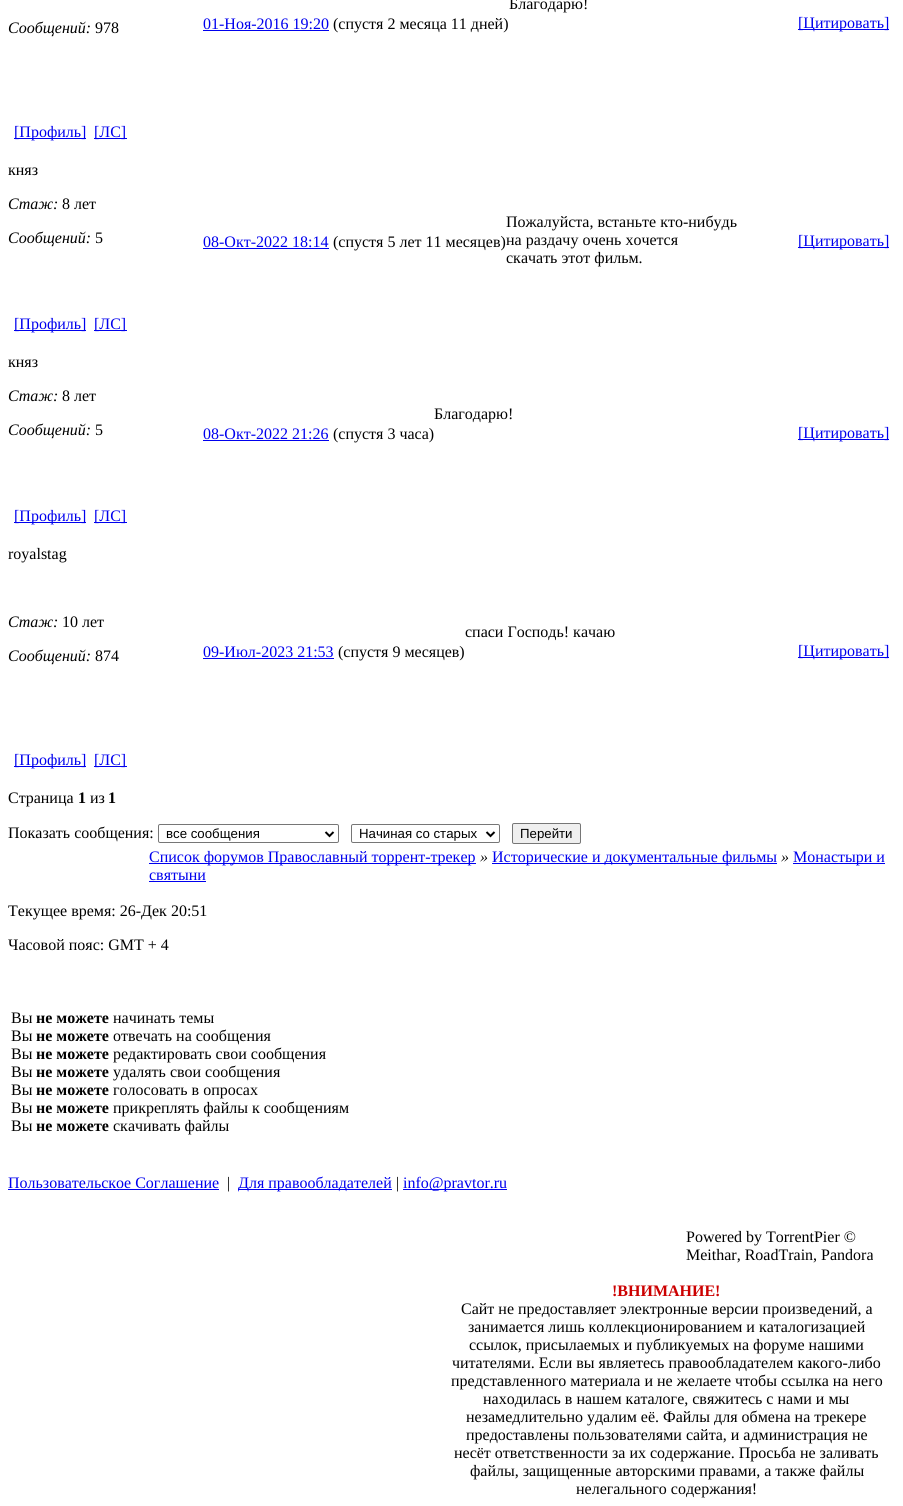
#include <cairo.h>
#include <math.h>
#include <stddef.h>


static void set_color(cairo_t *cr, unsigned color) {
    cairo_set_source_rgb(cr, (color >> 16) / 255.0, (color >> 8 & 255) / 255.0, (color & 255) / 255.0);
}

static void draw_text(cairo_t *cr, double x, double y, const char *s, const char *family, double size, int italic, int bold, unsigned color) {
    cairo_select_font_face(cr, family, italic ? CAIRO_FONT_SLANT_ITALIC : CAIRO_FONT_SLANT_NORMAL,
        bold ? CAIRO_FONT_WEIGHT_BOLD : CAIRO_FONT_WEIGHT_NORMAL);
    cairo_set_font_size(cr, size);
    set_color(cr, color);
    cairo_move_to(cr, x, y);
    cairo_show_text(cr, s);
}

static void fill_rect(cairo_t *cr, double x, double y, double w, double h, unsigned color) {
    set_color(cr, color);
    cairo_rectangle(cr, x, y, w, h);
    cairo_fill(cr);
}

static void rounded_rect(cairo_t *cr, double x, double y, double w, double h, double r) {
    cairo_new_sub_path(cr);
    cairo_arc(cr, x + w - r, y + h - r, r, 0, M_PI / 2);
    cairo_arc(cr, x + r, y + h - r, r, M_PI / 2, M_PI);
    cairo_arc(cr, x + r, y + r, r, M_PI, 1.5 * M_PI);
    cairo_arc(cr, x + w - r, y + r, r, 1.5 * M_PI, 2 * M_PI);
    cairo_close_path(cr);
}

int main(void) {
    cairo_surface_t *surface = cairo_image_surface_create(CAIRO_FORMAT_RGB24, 903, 1506);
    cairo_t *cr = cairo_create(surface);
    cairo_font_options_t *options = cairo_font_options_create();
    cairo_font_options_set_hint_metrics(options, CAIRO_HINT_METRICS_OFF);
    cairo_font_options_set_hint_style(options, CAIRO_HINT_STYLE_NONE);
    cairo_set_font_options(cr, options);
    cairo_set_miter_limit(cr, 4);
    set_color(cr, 0xFFFFFF);
    cairo_paint(cr);
    draw_text(cr, 8, 33, "Сообщений:", "Liberation Serif", 16, 1, 0, 0x000000);
    draw_text(cr, 95, 33, "978", "Liberation Serif", 16, 0, 0, 0x000000);
    draw_text(cr, 509, 9, "Благодарю!", "Liberation Serif", 16, 0, 0, 0x000000);
    draw_text(cr, 203, 29, "01-Ноя-2016 19:20", "Liberation Serif", 16, 0, 0, 0x0000EE);
    fill_rect(cr, 203, 30, 126, 1, 0x0000EE);
    draw_text(cr, 333, 29, "(спустя 2 месяца 11 дней)", "Liberation Serif", 16, 0, 0, 0x000000);
    fill_rect(cr, 798, 29, 91, 1, 0x0000EE);
    draw_text(cr, 798, 28, "[Цитировать]", "Liberation Serif", 16, 0, 0, 0x0000EE);
    fill_rect(cr, 14, 138, 72, 1, 0x0000EE);
    draw_text(cr, 14, 137, "[Профиль]", "Liberation Serif", 16, 0, 0, 0x0000EE);
    fill_rect(cr, 94, 138, 33, 1, 0x0000EE);
    draw_text(cr, 94, 137, "[ЛС]", "Liberation Serif", 16, 0, 0, 0x0000EE);
    draw_text(cr, 8, 175, "княз", "Liberation Serif", 16, 0, 0, 0x000000);
    draw_text(cr, 8, 209, "Стаж:", "Liberation Serif", 16, 1, 0, 0x000000);
    draw_text(cr, 62, 209, "8 лет", "Liberation Serif", 16, 0, 0, 0x000000);
    draw_text(cr, 8, 243, "Сообщений:", "Liberation Serif", 16, 1, 0, 0x000000);
    draw_text(cr, 95, 243, "5", "Liberation Serif", 16, 0, 0, 0x000000);
    draw_text(cr, 506, 227, "Пожалуйста, встаньте кто-нибудь", "Liberation Serif", 16, 0, 0, 0x000000);
    draw_text(cr, 506, 245, "на раздачу очень хочется", "Liberation Serif", 16, 0, 0, 0x000000);
    draw_text(cr, 506, 263, "скачать этот фильм.", "Liberation Serif", 16, 0, 0, 0x000000);
    draw_text(cr, 203, 247, "08-Окт-2022 18:14", "Liberation Serif", 16, 0, 0, 0x0000EE);
    fill_rect(cr, 203, 248, 126, 1, 0x0000EE);
    draw_text(cr, 333, 247, "(спустя 5 лет 11 месяцев)", "Liberation Serif", 16, 0, 0, 0x000000);
    fill_rect(cr, 798, 247, 91, 1, 0x0000EE);
    draw_text(cr, 798, 246, "[Цитировать]", "Liberation Serif", 16, 0, 0, 0x0000EE);
    fill_rect(cr, 14, 330, 72, 1, 0x0000EE);
    draw_text(cr, 14, 329, "[Профиль]", "Liberation Serif", 16, 0, 0, 0x0000EE);
    fill_rect(cr, 94, 330, 33, 1, 0x0000EE);
    draw_text(cr, 94, 329, "[ЛС]", "Liberation Serif", 16, 0, 0, 0x0000EE);
    draw_text(cr, 8, 367, "княз", "Liberation Serif", 16, 0, 0, 0x000000);
    draw_text(cr, 8, 401, "Стаж:", "Liberation Serif", 16, 1, 0, 0x000000);
    draw_text(cr, 62, 401, "8 лет", "Liberation Serif", 16, 0, 0, 0x000000);
    draw_text(cr, 8, 435, "Сообщений:", "Liberation Serif", 16, 1, 0, 0x000000);
    draw_text(cr, 95, 435, "5", "Liberation Serif", 16, 0, 0, 0x000000);
    draw_text(cr, 434, 419, "Благодарю!", "Liberation Serif", 16, 0, 0, 0x000000);
    draw_text(cr, 203, 439, "08-Окт-2022 21:26", "Liberation Serif", 16, 0, 0, 0x0000EE);
    fill_rect(cr, 203, 440, 126, 1, 0x0000EE);
    draw_text(cr, 333, 439, "(спустя 3 часа)", "Liberation Serif", 16, 0, 0, 0x000000);
    fill_rect(cr, 798, 439, 91, 1, 0x0000EE);
    draw_text(cr, 798, 438, "[Цитировать]", "Liberation Serif", 16, 0, 0, 0x0000EE);
    fill_rect(cr, 14, 522, 72, 1, 0x0000EE);
    draw_text(cr, 14, 521, "[Профиль]", "Liberation Serif", 16, 0, 0, 0x0000EE);
    fill_rect(cr, 94, 522, 33, 1, 0x0000EE);
    draw_text(cr, 94, 521, "[ЛС]", "Liberation Serif", 16, 0, 0, 0x0000EE);
    draw_text(cr, 8, 559, "royalstag", "Liberation Serif", 16, 0, 0, 0x000000);
    draw_text(cr, 8, 627, "Стаж:", "Liberation Serif", 16, 1, 0, 0x000000);
    draw_text(cr, 62, 627, "10 лет", "Liberation Serif", 16, 0, 0, 0x000000);
    draw_text(cr, 8, 661, "Сообщений:", "Liberation Serif", 16, 1, 0, 0x000000);
    draw_text(cr, 95, 661, "874", "Liberation Serif", 16, 0, 0, 0x000000);
    draw_text(cr, 465, 637, "спаси Господь! качаю", "Liberation Serif", 16, 0, 0, 0x000000);
    draw_text(cr, 203, 657, "09-Июл-2023 21:53", "Liberation Serif", 16, 0, 0, 0x0000EE);
    fill_rect(cr, 203, 658, 131, 1, 0x0000EE);
    draw_text(cr, 338, 657, "(спустя 9 месяцев)", "Liberation Serif", 16, 0, 0, 0x000000);
    fill_rect(cr, 798, 657, 91, 1, 0x0000EE);
    draw_text(cr, 798, 656, "[Цитировать]", "Liberation Serif", 16, 0, 0, 0x0000EE);
    fill_rect(cr, 14, 766, 72, 1, 0x0000EE);
    draw_text(cr, 14, 765, "[Профиль]", "Liberation Serif", 16, 0, 0, 0x0000EE);
    fill_rect(cr, 94, 766, 33, 1, 0x0000EE);
    draw_text(cr, 94, 765, "[ЛС]", "Liberation Serif", 16, 0, 0, 0x0000EE);
    draw_text(cr, 8, 803, "Страница", "Liberation Serif", 16, 0, 0, 0x000000);
    draw_text(cr, 78, 803, "1", "Liberation Serif", 16, 0, 1, 0x000000);
    draw_text(cr, 90, 803, "из", "Liberation Serif", 16, 0, 0, 0x000000);
    draw_text(cr, 108, 803, "1", "Liberation Serif", 16, 0, 1, 0x000000);
    draw_text(cr, 8, 838, "Показать сообщения:", "Liberation Serif", 16, 0, 0, 0x000000);
    rounded_rect(cr, 158.5, 824.5, 180, 18, 1.5);
    set_color(cr, 0x767676);
    cairo_set_line_width(cr, 1);
    cairo_stroke(cr);
    cairo_new_path(cr);
    cairo_move_to(cr, 325.5, 832);
    cairo_line_to(cr, 329.5, 836);
    cairo_line_to(cr, 333.5, 832);
    set_color(cr, 0x000000);
    cairo_set_line_width(cr, 2);
    cairo_stroke(cr);
    draw_text(cr, 166, 838, "все сообщения", "Liberation Sans", 13.25, 0, 0, 0x000000);
    rounded_rect(cr, 351.5, 824.5, 148, 18, 1.5);
    set_color(cr, 0x767676);
    cairo_set_line_width(cr, 1);
    cairo_stroke(cr);
    cairo_new_path(cr);
    cairo_move_to(cr, 486.5, 832);
    cairo_line_to(cr, 490.5, 836);
    cairo_line_to(cr, 494.5, 832);
    set_color(cr, 0x000000);
    cairo_set_line_width(cr, 2);
    cairo_stroke(cr);
    draw_text(cr, 359, 838, "Начиная со старых", "Liberation Sans", 13.25, 0, 0, 0x000000);
    set_color(cr, 0xEFEFEF);
    rounded_rect(cr, 512.5, 823.5, 68, 20, 1.5);
    cairo_fill_preserve(cr);
    set_color(cr, 0x767676);
    cairo_set_line_width(cr, 1);
    cairo_stroke(cr);
    draw_text(cr, 520, 838, "Перейти", "Liberation Sans", 13.25, 0, 0, 0x000000);
    fill_rect(cr, 149, 863, 327, 1, 0x0000EE);
    draw_text(cr, 149, 862, "Список форумов Православный торрент-трекер", "Liberation Serif", 16, 0, 0, 0x0000EE);
    draw_text(cr, 480, 862, "»", "Liberation Serif", 16, 1, 0, 0x000000);
    fill_rect(cr, 492, 863, 285, 1, 0x0000EE);
    draw_text(cr, 492, 862, "Исторические и документальные фильмы", "Liberation Serif", 16, 0, 0, 0x0000EE);
    draw_text(cr, 781, 862, "»", "Liberation Serif", 16, 1, 0, 0x000000);
    fill_rect(cr, 793, 863, 92, 1, 0x0000EE);
    draw_text(cr, 793, 862, "Монастыри и", "Liberation Serif", 16, 0, 0, 0x0000EE);
    draw_text(cr, 149, 880, "святыни", "Liberation Serif", 16, 0, 0, 0x0000EE);
    fill_rect(cr, 149, 881, 57, 1, 0x0000EE);
    draw_text(cr, 8, 916, "Текущее время: 26-Дек 20:51", "Liberation Serif", 16, 0, 0, 0x000000);
    draw_text(cr, 8, 950, "Часовой пояс: GMT + 4", "Liberation Serif", 16, 0, 0, 0x000000);
    draw_text(cr, 11, 1023, "Вы", "Liberation Serif", 16, 0, 0, 0x000000);
    draw_text(cr, 36, 1023, "не можете", "Liberation Serif", 16, 0, 1, 0x000000);
    draw_text(cr, 113, 1023, "начинать темы", "Liberation Serif", 16, 0, 0, 0x000000);
    draw_text(cr, 11, 1041, "Вы", "Liberation Serif", 16, 0, 0, 0x000000);
    draw_text(cr, 36, 1041, "не можете", "Liberation Serif", 16, 0, 1, 0x000000);
    draw_text(cr, 113, 1041, "отвечать на сообщения", "Liberation Serif", 16, 0, 0, 0x000000);
    draw_text(cr, 11, 1059, "Вы", "Liberation Serif", 16, 0, 0, 0x000000);
    draw_text(cr, 36, 1059, "не можете", "Liberation Serif", 16, 0, 1, 0x000000);
    draw_text(cr, 113, 1059, "редактировать свои сообщения", "Liberation Serif", 16, 0, 0, 0x000000);
    draw_text(cr, 11, 1077, "Вы", "Liberation Serif", 16, 0, 0, 0x000000);
    draw_text(cr, 36, 1077, "не можете", "Liberation Serif", 16, 0, 1, 0x000000);
    draw_text(cr, 113, 1077, "удалять свои сообщения", "Liberation Serif", 16, 0, 0, 0x000000);
    draw_text(cr, 11, 1095, "Вы", "Liberation Serif", 16, 0, 0, 0x000000);
    draw_text(cr, 36, 1095, "не можете", "Liberation Serif", 16, 0, 1, 0x000000);
    draw_text(cr, 113, 1095, "голосовать в опросах", "Liberation Serif", 16, 0, 0, 0x000000);
    draw_text(cr, 11, 1113, "Вы", "Liberation Serif", 16, 0, 0, 0x000000);
    draw_text(cr, 36, 1113, "не можете", "Liberation Serif", 16, 0, 1, 0x000000);
    draw_text(cr, 113, 1113, "прикреплять файлы к сообщениям", "Liberation Serif", 16, 0, 0, 0x000000);
    draw_text(cr, 11, 1131, "Вы", "Liberation Serif", 16, 0, 0, 0x000000);
    draw_text(cr, 36, 1131, "не можете", "Liberation Serif", 16, 0, 1, 0x000000);
    draw_text(cr, 113, 1131, "скачивать файлы", "Liberation Serif", 16, 0, 0, 0x000000);
    draw_text(cr, 8, 1188, "Пользовательское Соглашение", "Liberation Serif", 16, 0, 0, 0x0000EE);
    fill_rect(cr, 8, 1189, 211, 1, 0x0000EE);
    draw_text(cr, 227, 1188, "|", "Liberation Serif", 16, 0, 0, 0x000000);
    fill_rect(cr, 238, 1189, 154, 1, 0x0000EE);
    draw_text(cr, 238, 1188, "Для правообладателей", "Liberation Serif", 16, 0, 0, 0x0000EE);
    draw_text(cr, 396, 1188, "|", "Liberation Serif", 16, 0, 0, 0x000000);
    fill_rect(cr, 403, 1189, 104, 1, 0x0000EE);
    draw_text(cr, 403, 1188, "info@pravtor.ru", "Liberation Serif", 16, 0, 0, 0x0000EE);
    draw_text(cr, 686, 1242, "Powered by TorrentPier ©", "Liberation Serif", 16, 0, 0, 0x000000);
    draw_text(cr, 686, 1260, "Meithar, RoadTrain, Pandora", "Liberation Serif", 16, 0, 0, 0x000000);
    draw_text(cr, 612, 1296, "!ВНИМАНИЕ!", "Liberation Serif", 16, 0, 1, 0xCC0000);
    draw_text(cr, 461, 1314, "Сайт не предоставляет электронные версии произведений, а", "Liberation Serif", 16, 0, 0, 0x000000);
    draw_text(cr, 468, 1332, "занимается лишь коллекционированием и каталогизацией", "Liberation Serif", 16, 0, 0, 0x000000);
    draw_text(cr, 469, 1350, "ссылок, присылаемых и публикуемых на форуме нашими", "Liberation Serif", 16, 0, 0, 0x000000);
    draw_text(cr, 452, 1368, "читателями. Если вы являетесь правообладателем какого-либо", "Liberation Serif", 16, 0, 0, 0x000000);
    draw_text(cr, 451, 1386, "представленного материала и не желаете чтобы ссылка на него", "Liberation Serif", 16, 0, 0, 0x000000);
    draw_text(cr, 483, 1404, "находилась в нашем каталоге, свяжитесь с нами и мы", "Liberation Serif", 16, 0, 0, 0x000000);
    draw_text(cr, 466, 1422, "незамедлительно удалим её. Файлы для обмена на трекере", "Liberation Serif", 16, 0, 0, 0x000000);
    draw_text(cr, 466, 1440, "предоставлены пользователями сайта, и администрация не", "Liberation Serif", 16, 0, 0, 0x000000);
    draw_text(cr, 454, 1458, "несёт ответственности за их содержание. Просьба не заливать", "Liberation Serif", 16, 0, 0, 0x000000);
    draw_text(cr, 470, 1476, "файлы, защищенные авторскими правами, а также файлы", "Liberation Serif", 16, 0, 0, 0x000000);
    draw_text(cr, 576, 1494, "нелегального содержания!", "Liberation Serif", 16, 0, 0, 0x000000);
    cairo_surface_write_to_png(surface, "output.png");
    cairo_font_options_destroy(options);
    cairo_destroy(cr);
    cairo_surface_destroy(surface);
    return 0;
}
